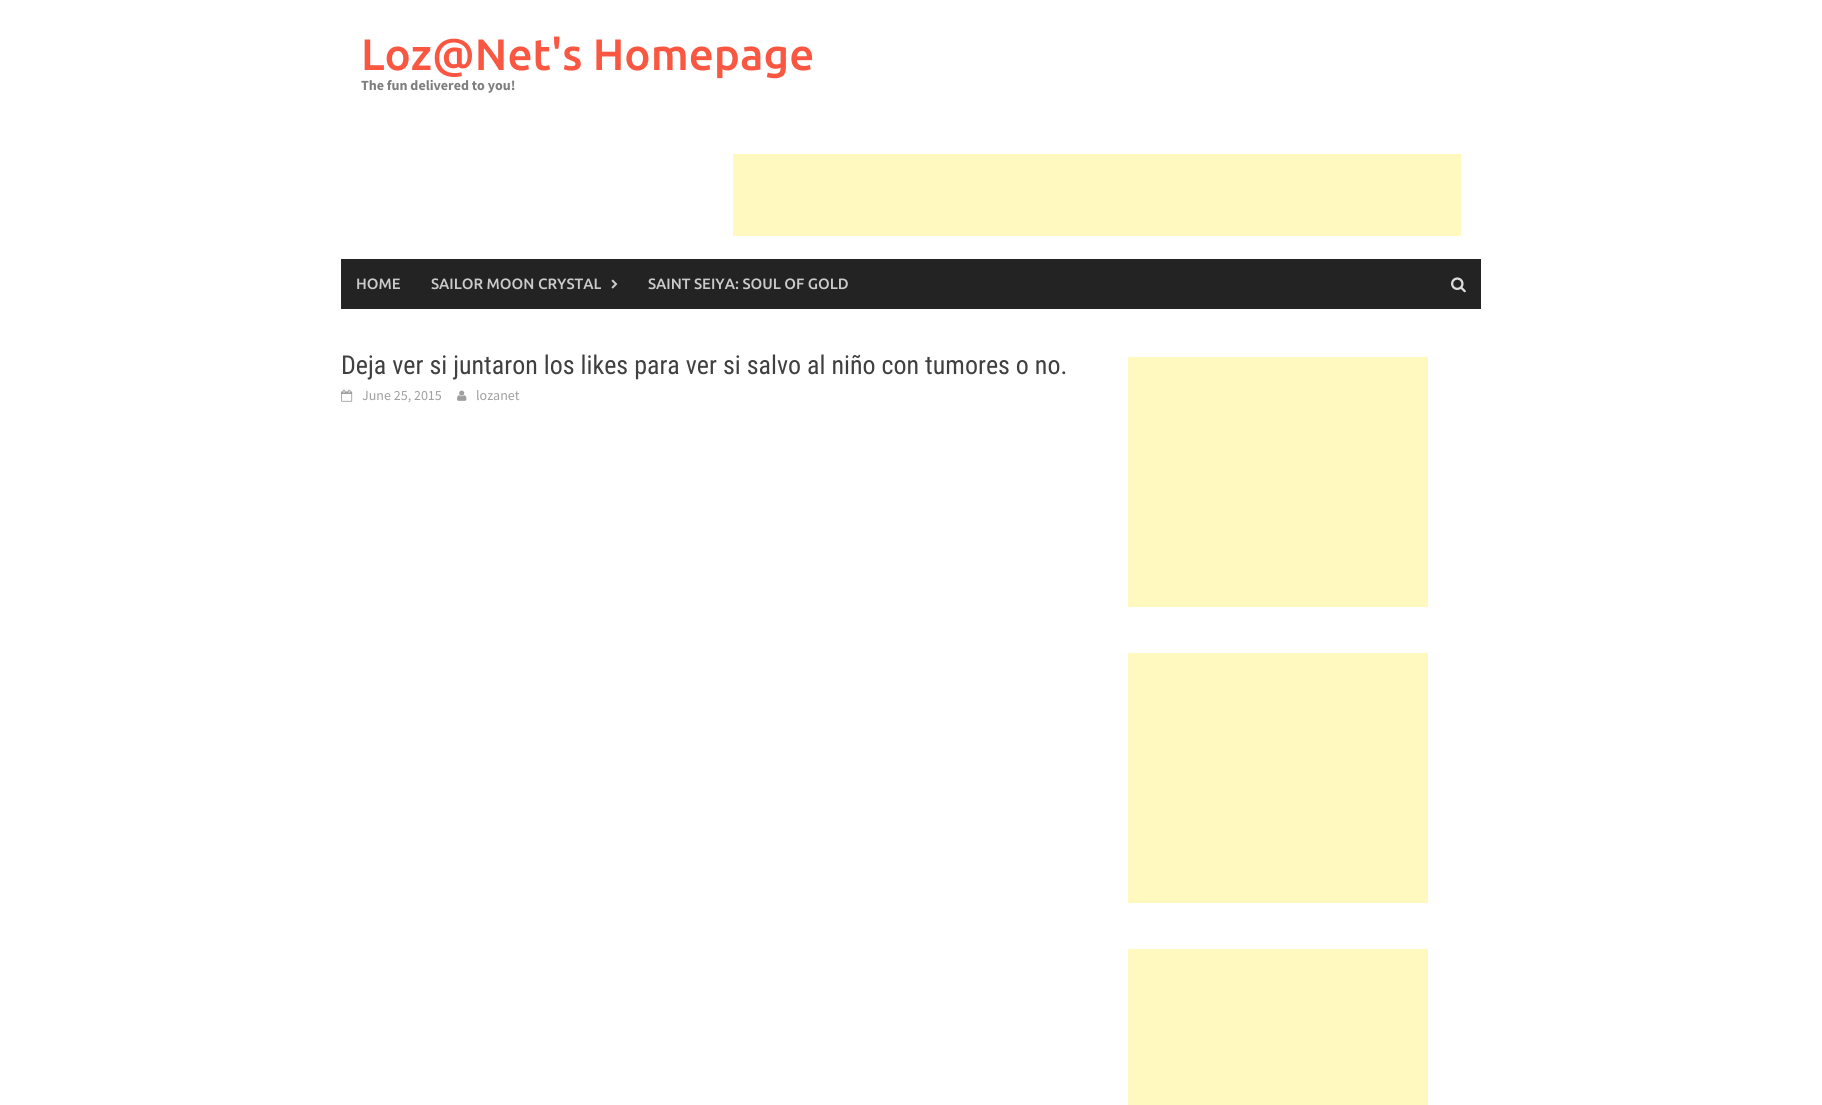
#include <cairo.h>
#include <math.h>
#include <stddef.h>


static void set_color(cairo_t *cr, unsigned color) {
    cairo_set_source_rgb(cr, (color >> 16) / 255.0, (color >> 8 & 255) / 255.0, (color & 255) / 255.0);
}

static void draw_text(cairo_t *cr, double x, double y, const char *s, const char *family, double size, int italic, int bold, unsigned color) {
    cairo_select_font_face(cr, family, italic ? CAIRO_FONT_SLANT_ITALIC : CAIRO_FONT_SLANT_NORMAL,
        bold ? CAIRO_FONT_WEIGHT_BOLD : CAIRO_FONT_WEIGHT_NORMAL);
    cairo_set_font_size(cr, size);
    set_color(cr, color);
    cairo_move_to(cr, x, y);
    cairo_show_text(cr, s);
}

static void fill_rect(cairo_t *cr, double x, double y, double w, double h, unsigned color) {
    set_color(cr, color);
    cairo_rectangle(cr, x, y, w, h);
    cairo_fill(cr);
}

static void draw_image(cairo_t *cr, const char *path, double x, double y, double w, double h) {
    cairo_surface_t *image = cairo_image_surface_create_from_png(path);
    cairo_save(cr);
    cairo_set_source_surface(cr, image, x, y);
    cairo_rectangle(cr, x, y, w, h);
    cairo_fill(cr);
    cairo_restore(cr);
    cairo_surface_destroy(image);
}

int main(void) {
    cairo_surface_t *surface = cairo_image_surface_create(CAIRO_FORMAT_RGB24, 1822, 1105);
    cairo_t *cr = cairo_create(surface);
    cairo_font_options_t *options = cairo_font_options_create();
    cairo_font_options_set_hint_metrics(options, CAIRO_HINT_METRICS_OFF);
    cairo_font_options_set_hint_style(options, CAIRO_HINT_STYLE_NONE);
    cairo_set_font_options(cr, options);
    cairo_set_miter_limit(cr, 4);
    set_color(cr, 0xFFFFFF);
    cairo_paint(cr);
    draw_text(cr, 361, 70, "Loz@Net's Homepage", "Ubuntu Medium", 44, 0, 0, 0xFA5742);
    draw_text(cr, 361, 90, "The fun delivered to you!", "Source Sans Pro", 14, 0, 1, 0x7E7E7E);
    fill_rect(cr, 733, 154, 728, 82, 0xFFF9C0);
    fill_rect(cr, 341, 259, 1140, 50, 0x232323);
    draw_text(cr, 356, 289, "HOME", "Ubuntu Medium", 15, 0, 0, 0xCACACA);
    draw_text(cr, 431, 289, "SAILOR MOON CRYSTAL", "Ubuntu Medium", 15, 0, 0, 0xCACACA);
    draw_image(cr, "assets/img1.png", 611, 279, 7, 10);
    draw_text(cr, 648, 289, "SAINT SEIYA: SOUL OF GOLD", "Ubuntu Medium", 15, 0, 0, 0xCACACA);
    draw_image(cr, "assets/img2.png", 1451, 277, 15, 16);
    draw_text(cr, 341, 374, "Deja ver si juntaron los likes para ver si salvo al niño con tumores o no.", "Roboto Condensed", 26, 0, 0, 0x404040);
    draw_image(cr, "assets/img3.png", 341, 389, 12, 13);
    draw_text(cr, 362, 400, "June 25, 2015", "Source Sans Pro", 14, 0, 0, 0x9F9F9F);
    draw_image(cr, "assets/img4.png", 457, 390, 10, 11);
    draw_text(cr, 476, 400, "lozanet", "Source Sans Pro", 14, 0, 0, 0x9F9F9F);
    fill_rect(cr, 1128, 357, 300, 250, 0xFFF9C0);
    fill_rect(cr, 1128, 653, 300, 250, 0xFFF9C0);
    fill_rect(cr, 1128, 949, 300, 156, 0xFFF9C0);
    cairo_surface_write_to_png(surface, "output.png");
    cairo_font_options_destroy(options);
    cairo_destroy(cr);
    cairo_surface_destroy(surface);
    return 0;
}
